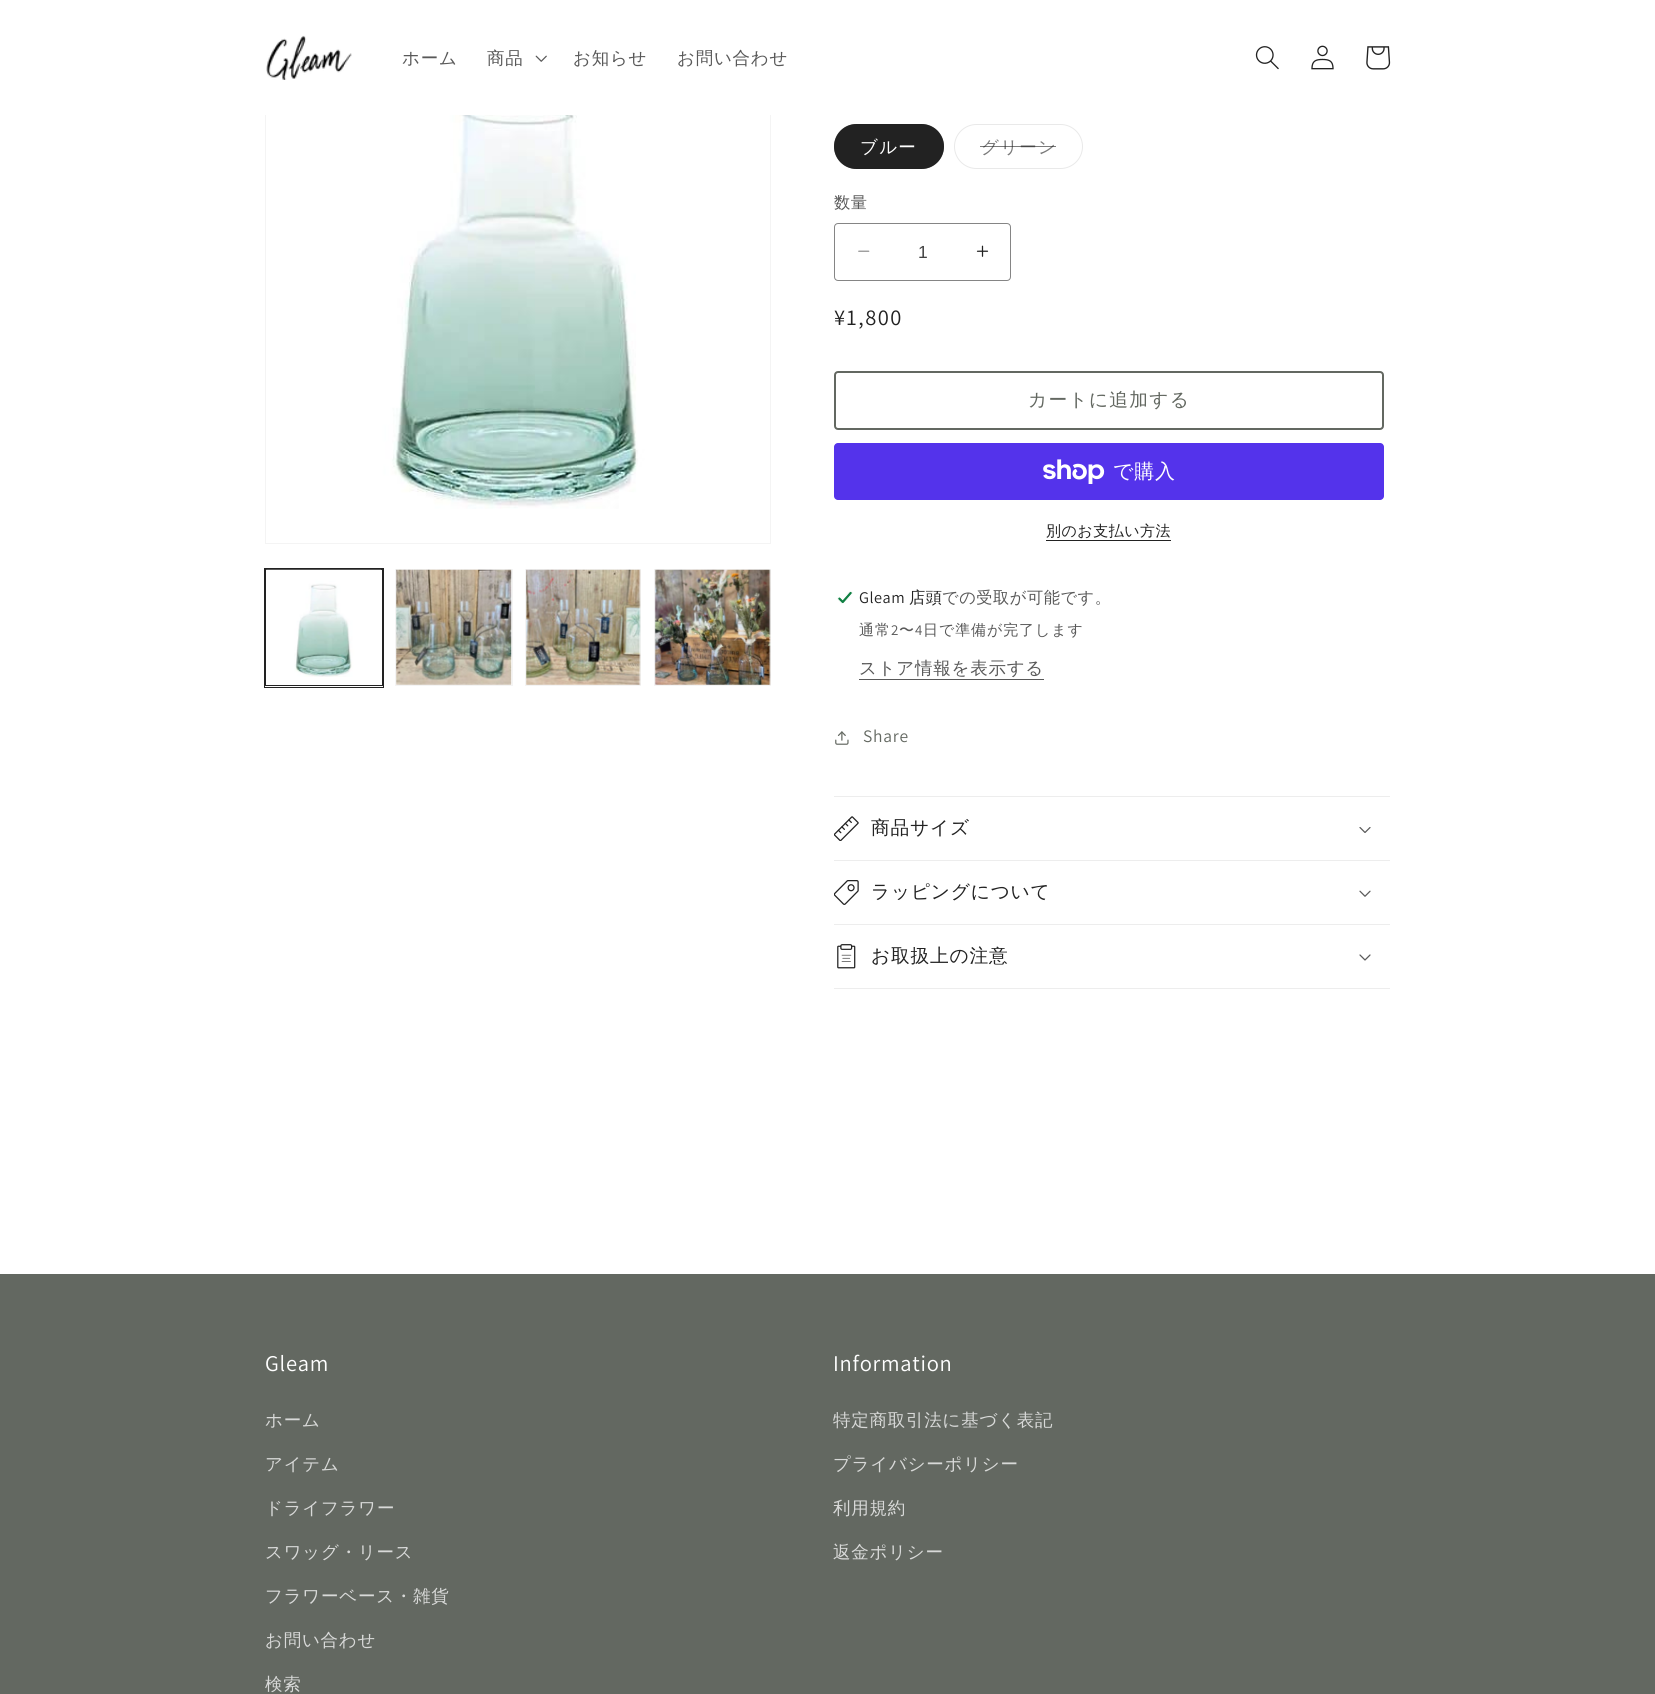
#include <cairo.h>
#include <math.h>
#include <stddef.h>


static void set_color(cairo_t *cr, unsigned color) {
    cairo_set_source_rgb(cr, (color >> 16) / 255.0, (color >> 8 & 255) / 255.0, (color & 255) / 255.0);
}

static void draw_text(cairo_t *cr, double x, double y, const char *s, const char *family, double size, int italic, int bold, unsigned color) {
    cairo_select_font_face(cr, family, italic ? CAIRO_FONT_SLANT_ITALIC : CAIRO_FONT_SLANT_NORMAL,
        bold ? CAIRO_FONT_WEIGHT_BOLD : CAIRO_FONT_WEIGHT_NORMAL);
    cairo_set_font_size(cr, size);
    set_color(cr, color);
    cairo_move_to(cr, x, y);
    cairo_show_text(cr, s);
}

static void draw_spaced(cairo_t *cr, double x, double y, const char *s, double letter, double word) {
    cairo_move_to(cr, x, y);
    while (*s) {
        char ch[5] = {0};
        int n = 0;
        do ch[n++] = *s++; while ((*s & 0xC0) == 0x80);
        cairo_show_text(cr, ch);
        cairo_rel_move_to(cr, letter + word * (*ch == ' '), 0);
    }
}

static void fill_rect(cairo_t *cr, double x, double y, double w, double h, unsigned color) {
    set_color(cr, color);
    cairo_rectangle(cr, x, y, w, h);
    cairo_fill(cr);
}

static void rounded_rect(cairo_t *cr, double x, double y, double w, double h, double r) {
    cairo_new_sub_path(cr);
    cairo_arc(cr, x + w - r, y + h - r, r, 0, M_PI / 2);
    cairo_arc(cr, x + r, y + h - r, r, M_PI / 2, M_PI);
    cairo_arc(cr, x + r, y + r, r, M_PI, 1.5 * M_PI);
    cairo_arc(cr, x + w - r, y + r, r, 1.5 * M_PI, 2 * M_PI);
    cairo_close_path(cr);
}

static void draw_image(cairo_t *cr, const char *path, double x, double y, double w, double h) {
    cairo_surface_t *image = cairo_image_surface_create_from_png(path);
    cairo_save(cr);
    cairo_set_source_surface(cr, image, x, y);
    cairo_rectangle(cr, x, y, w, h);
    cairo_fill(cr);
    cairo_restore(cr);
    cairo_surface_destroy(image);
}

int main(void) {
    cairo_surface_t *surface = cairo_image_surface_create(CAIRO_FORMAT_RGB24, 1655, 1694);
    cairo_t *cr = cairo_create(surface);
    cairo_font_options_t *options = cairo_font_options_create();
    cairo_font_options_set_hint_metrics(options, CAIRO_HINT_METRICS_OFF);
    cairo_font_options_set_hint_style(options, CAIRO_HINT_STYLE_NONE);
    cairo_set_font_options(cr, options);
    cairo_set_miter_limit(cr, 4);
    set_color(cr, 0xFFFFFF);
    cairo_paint(cr);
    cairo_rectangle(cr, 265.5, 38.5, 505, 505);
    set_color(cr, 0xF4F4F4);
    cairo_set_line_width(cr, 1);
    cairo_stroke(cr);
    fill_rect(cr, 265, 38, 506, 77, 0xFFFFFF);
    draw_image(cr, "assets/img1.png", 266, 35, 86, 45);
    cairo_select_font_face(cr, "WenQuanYi Zen Hei Medium", CAIRO_FONT_SLANT_NORMAL, CAIRO_FONT_WEIGHT_NORMAL);
    cairo_set_font_size(cr, 17.5);
    set_color(cr, 0x595959);
    draw_spaced(cr, 402, 64, "ホーム", 0.75, 0);
    draw_spaced(cr, 487, 64, "商品", 0.75, 0);
    draw_image(cr, "assets/img2.png", 535, 55, 12, 7);
    draw_spaced(cr, 573, 64, "お知らせ", 0.75, 0);
    draw_spaced(cr, 677, 64, "お問い合わせ", 0.75, 0);
    draw_image(cr, "assets/img3.png", 1255, 46, 24, 24);
    draw_image(cr, "assets/img4.png", 1311, 45, 23, 25);
    draw_image(cr, "assets/img5.png", 1366, 46, 25, 24);
    draw_image(cr, "assets/img6.png", 266, 115, 504, 394);
    cairo_rectangle(cr, 264.5, 568.5, 119, 119);
    set_color(cr, 0x222222);
    cairo_stroke(cr);
    cairo_rectangle(cr, 265.5, 569.5, 117, 116);
    cairo_stroke(cr);
    draw_image(cr, "assets/img7.png", 266, 569, 116, 108);
    cairo_rectangle(cr, 395.5, 569.5, 117, 116);
    set_color(cr, 0xF4F4F4);
    cairo_stroke(cr);
    draw_image(cr, "assets/img8.png", 396, 569, 116, 116);
    cairo_rectangle(cr, 525.5, 569.5, 115, 116);
    cairo_stroke(cr);
    draw_image(cr, "assets/img9.png", 526, 569, 115, 116);
    cairo_rectangle(cr, 654.5, 569.5, 116, 116);
    cairo_stroke(cr);
    draw_image(cr, "assets/img10.png", 654, 569, 117, 116);
    set_color(cr, 0x222222);
    rounded_rect(cr, 834, 124, 110, 45, 22.5);
    cairo_fill(cr);
    rounded_rect(cr, 834.5, 124.5, 109, 44, 22);
    cairo_set_source_rgba(cr, 0.133, 0.133, 0.133, 0.55);
    cairo_stroke(cr);
    set_color(cr, 0xFFFFFF);
    draw_spaced(cr, 860, 153, "ブルー", 1.25, 0);
    rounded_rect(cr, 954.5, 124.5, 128, 44, 22);
    set_color(cr, 0xE9E9E9);
    cairo_stroke(cr);
    set_color(cr, 0x7A7A7A);
    draw_spaced(cr, 981, 153, "グリーン", 1.25, 0);
    cairo_set_source_rgba(cr, 0.133, 0.133, 0.133, 0.6);
    cairo_rectangle(cr, 980, 146, 76, 1);
    cairo_fill(cr);
    cairo_set_font_size(cr, 16.25);
    set_color(cr, 0x595959);
    draw_spaced(cr, 834, 208, "数量", 0.5, 0);
    draw_image(cr, "assets/img11.png", 858, 250, 12, 2);
    draw_image(cr, "assets/img12.png", 976, 245, 13, 12);
    rounded_rect(cr, 834.5, 223.5, 176, 57, 3.5);
    set_color(cr, 0x858585);
    cairo_stroke(cr);
    draw_text(cr, 918, 258, "1", "Liberation Sans", 17.5, 0, 0, 0x434343);
    cairo_select_font_face(cr, "Assistant", CAIRO_FONT_SLANT_NORMAL, CAIRO_FONT_WEIGHT_NORMAL);
    cairo_set_font_size(cr, 22.5);
    set_color(cr, 0x222222);
    draw_spaced(cr, 834, 325, "¥1,800", 1.5, 0);
    rounded_rect(cr, 835, 372, 548, 57, 3);
    set_color(cr, 0x636861);
    cairo_set_line_width(cr, 2);
    cairo_stroke(cr);
    cairo_select_font_face(cr, "WenQuanYi Zen Hei Medium", CAIRO_FONT_SLANT_NORMAL, CAIRO_FONT_WEIGHT_NORMAL);
    cairo_set_font_size(cr, 18.75);
    draw_spaced(cr, 1028, 406, "カートに追加する", 1.25, 0);
    set_color(cr, 0x5433EB);
    rounded_rect(cr, 834, 443, 550, 57, 4);
    cairo_fill(cr);
    draw_image(cr, "assets/img13.png", 1043, 459, 62, 25);
    cairo_set_font_size(cr, 20);
    set_color(cr, 0xFFFFFF);
    draw_spaced(cr, 1113, 478, "で購入", 0.75, 0);
    cairo_set_font_size(cr, 15);
    set_color(cr, 0x222222);
    draw_spaced(cr, 1046, 536, "別のお支払い方法", 0.5, 0);
    fill_rect(cr, 1046, 540, 125, 1, 0x222222);
    draw_image(cr, "assets/img14.png", 837, 591, 16, 13);
    cairo_select_font_face(cr, "Assistant", CAIRO_FONT_SLANT_NORMAL, CAIRO_FONT_WEIGHT_NORMAL);
    cairo_set_font_size(cr, 16.25);
    draw_spaced(cr, 859, 603, "Gleam", 0.5, 0);
    cairo_select_font_face(cr, "WenQuanYi Zen Hei Medium", CAIRO_FONT_SLANT_NORMAL, CAIRO_FONT_WEIGHT_NORMAL);
    draw_spaced(cr, 909, 603, "店頭", 0.5, 0);
    set_color(cr, 0x595959);
    draw_spaced(cr, 942, 603, "での受取が可能です。", 0.5, 0);
    cairo_set_font_size(cr, 15);
    draw_spaced(cr, 859, 635, "通常", 0.9, 0);
    cairo_select_font_face(cr, "Assistant", CAIRO_FONT_SLANT_NORMAL, CAIRO_FONT_WEIGHT_NORMAL);
    draw_spaced(cr, 891, 635, "2", 0.9, 0);
    cairo_select_font_face(cr, "WenQuanYi Zen Hei Medium", CAIRO_FONT_SLANT_NORMAL, CAIRO_FONT_WEIGHT_NORMAL);
    draw_spaced(cr, 899, 635, "〜", 0.9, 0);
    cairo_select_font_face(cr, "Assistant", CAIRO_FONT_SLANT_NORMAL, CAIRO_FONT_WEIGHT_NORMAL);
    draw_spaced(cr, 915, 635, "4", 0.9, 0);
    cairo_select_font_face(cr, "WenQuanYi Zen Hei Medium", CAIRO_FONT_SLANT_NORMAL, CAIRO_FONT_WEIGHT_NORMAL);
    draw_spaced(cr, 923, 635, "日で準備が完了します", 0.9, 0);
    cairo_set_font_size(cr, 17.5);
    draw_spaced(cr, 859, 674, "ストア情報を表示する", 0.75, 0);
    fill_rect(cr, 859, 679, 185, 1, 0x595959);
    draw_image(cr, "assets/img15.png", 835, 731, 14, 14);
    cairo_select_font_face(cr, "Assistant", CAIRO_FONT_SLANT_NORMAL, CAIRO_FONT_WEIGHT_NORMAL);
    set_color(cr, 0x636861);
    draw_spaced(cr, 863, 742, "Share", 0.75, 0);
    fill_rect(cr, 834, 796, 556, 1, 0xEDEDED);
    fill_rect(cr, 834, 860, 556, 1, 0xEDEDED);
    draw_image(cr, "assets/img16.png", 834, 816, 25, 25);
    cairo_select_font_face(cr, "WenQuanYi Zen Hei Medium", CAIRO_FONT_SLANT_NORMAL, CAIRO_FONT_WEIGHT_NORMAL);
    cairo_set_font_size(cr, 18.75);
    set_color(cr, 0x222222);
    draw_spaced(cr, 871, 834, "商品サイズ", 0.75, 0);
    draw_image(cr, "assets/img17.png", 1359, 827, 12, 6);
    fill_rect(cr, 834, 924, 556, 1, 0xEDEDED);
    draw_image(cr, "assets/img18.png", 834, 880, 25, 25);
    set_color(cr, 0x222222);
    draw_spaced(cr, 871, 898, "ラッピングについて", 0.75, 0);
    draw_image(cr, "assets/img19.png", 1359, 890, 12, 7);
    fill_rect(cr, 834, 988, 556, 1, 0xEDEDED);
    draw_image(cr, "assets/img20.png", 837, 944, 19, 25);
    set_color(cr, 0x222222);
    draw_spaced(cr, 871, 962, "お取扱上の注意", 0.75, 0);
    draw_image(cr, "assets/img21.png", 1359, 954, 12, 7);
    fill_rect(cr, 0, 1274, 1655, 420, 0x636861);
    cairo_select_font_face(cr, "Assistant", CAIRO_FONT_SLANT_NORMAL, CAIRO_FONT_WEIGHT_NORMAL);
    cairo_set_font_size(cr, 22.5);
    set_color(cr, 0xFFFFFF);
    draw_spaced(cr, 265, 1371, "Gleam", 0.75, 0);
    cairo_select_font_face(cr, "WenQuanYi Zen Hei Medium", CAIRO_FONT_SLANT_NORMAL, CAIRO_FONT_WEIGHT_NORMAL);
    cairo_set_font_size(cr, 17.5);
    set_color(cr, 0xD8D9D8);
    draw_spaced(cr, 265, 1426, "ホーム", 0.75, 0);
    draw_spaced(cr, 265, 1470, "アイテム", 0.75, 0);
    draw_spaced(cr, 265, 1514, "ドライフラワー", 0.75, 0);
    draw_spaced(cr, 265, 1558, "スワッグ・リース", 0.75, 0);
    draw_spaced(cr, 265, 1602, "フラワーベース・雑貨", 0.75, 0);
    draw_spaced(cr, 265, 1646, "お問い合わせ", 0.75, 0);
    draw_spaced(cr, 265, 1690, "検索", 0.75, 0);
    cairo_select_font_face(cr, "Assistant", CAIRO_FONT_SLANT_NORMAL, CAIRO_FONT_WEIGHT_NORMAL);
    cairo_set_font_size(cr, 22.5);
    set_color(cr, 0xFFFFFF);
    draw_spaced(cr, 833, 1371, "Information", 0.75, 0);
    cairo_select_font_face(cr, "WenQuanYi Zen Hei Medium", CAIRO_FONT_SLANT_NORMAL, CAIRO_FONT_WEIGHT_NORMAL);
    cairo_set_font_size(cr, 17.5);
    set_color(cr, 0xD8D9D8);
    draw_spaced(cr, 833, 1426, "特定商取引法に基づく表記", 0.75, 0);
    draw_spaced(cr, 833, 1470, "プライバシーポリシー", 0.75, 0);
    draw_spaced(cr, 833, 1514, "利用規約", 0.75, 0);
    draw_spaced(cr, 833, 1558, "返金ポリシー", 0.75, 0);
    cairo_surface_write_to_png(surface, "output.png");
    cairo_font_options_destroy(options);
    cairo_destroy(cr);
    cairo_surface_destroy(surface);
    return 0;
}
